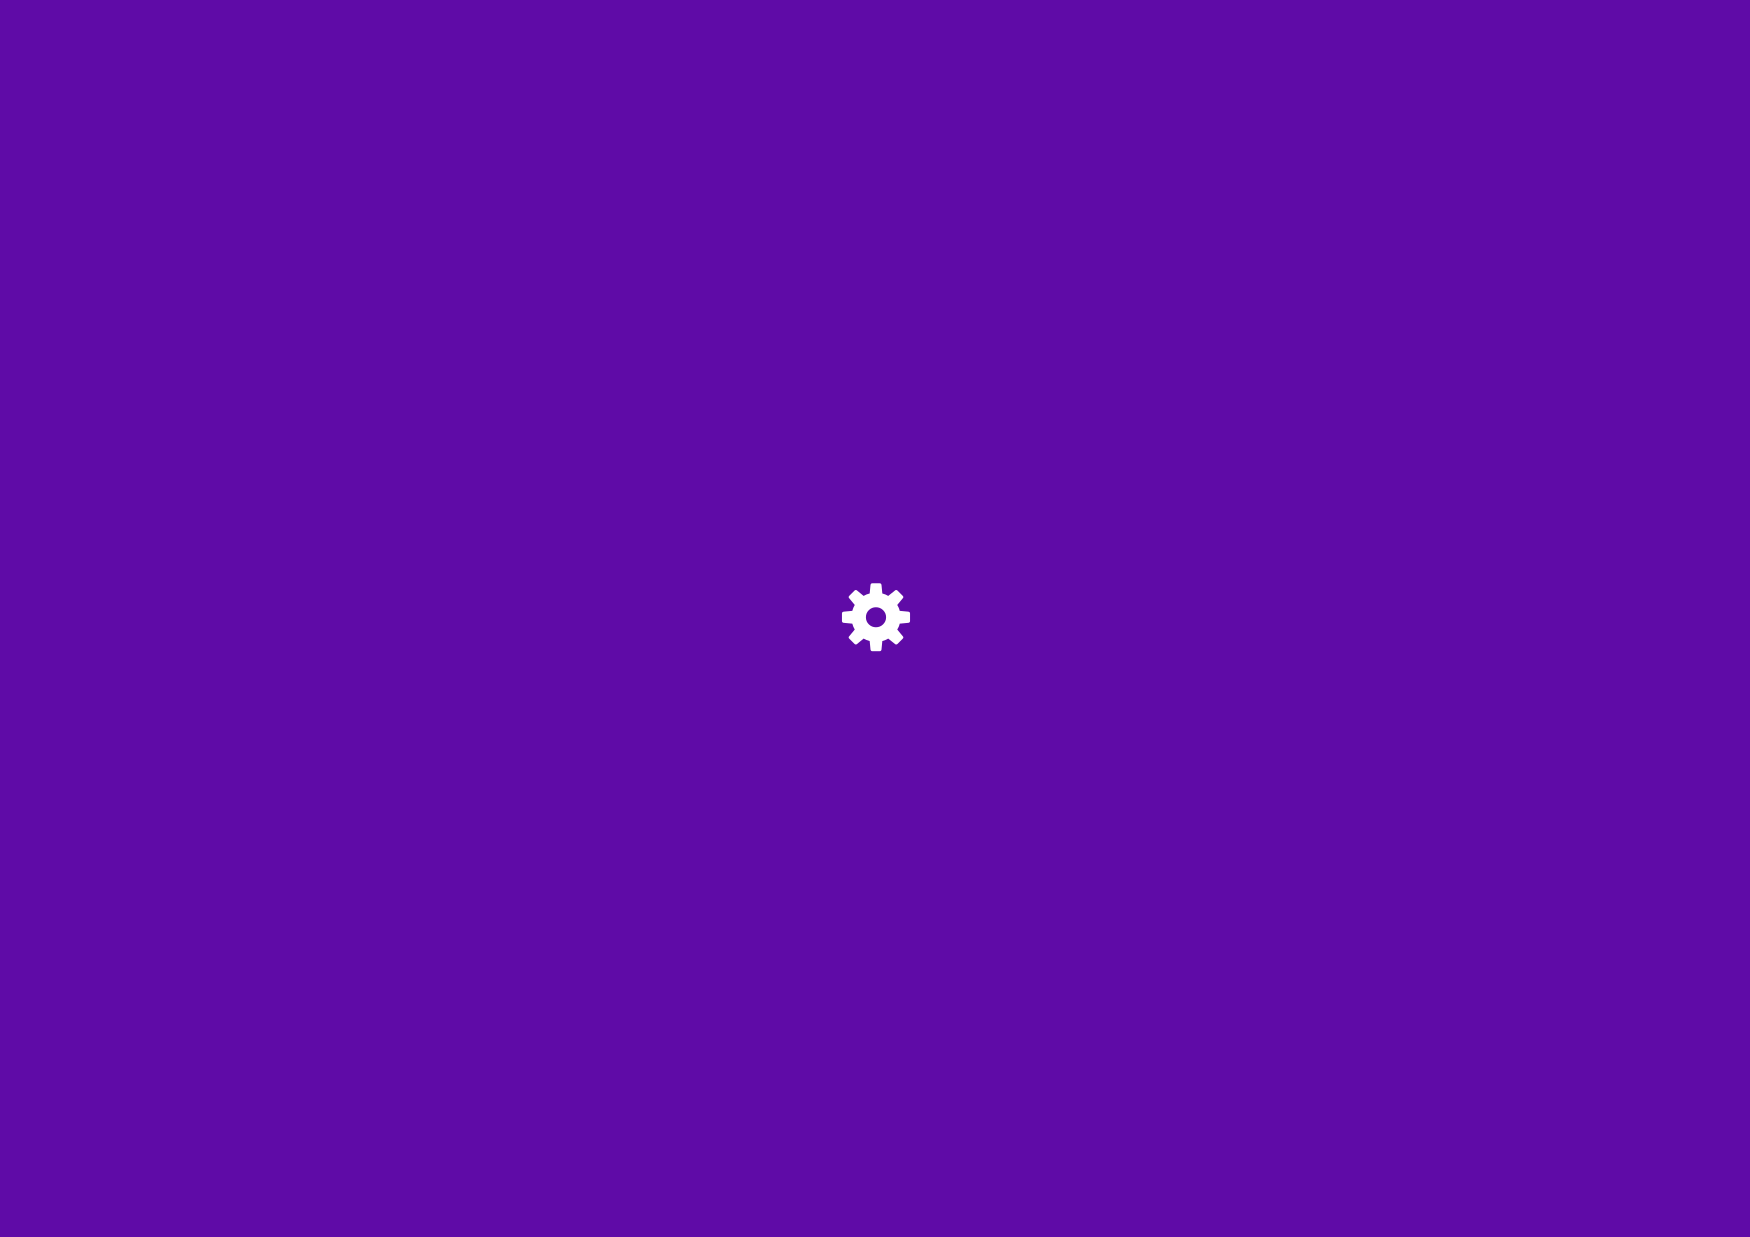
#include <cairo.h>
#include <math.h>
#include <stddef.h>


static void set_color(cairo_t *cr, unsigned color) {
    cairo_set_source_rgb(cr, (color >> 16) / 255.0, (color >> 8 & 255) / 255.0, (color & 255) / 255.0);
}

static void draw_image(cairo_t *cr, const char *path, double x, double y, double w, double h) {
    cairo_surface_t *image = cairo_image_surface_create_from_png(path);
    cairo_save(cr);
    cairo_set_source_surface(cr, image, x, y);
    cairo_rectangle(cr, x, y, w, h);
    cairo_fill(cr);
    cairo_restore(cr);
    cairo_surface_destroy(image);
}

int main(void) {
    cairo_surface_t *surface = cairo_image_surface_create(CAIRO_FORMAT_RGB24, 1750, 1237);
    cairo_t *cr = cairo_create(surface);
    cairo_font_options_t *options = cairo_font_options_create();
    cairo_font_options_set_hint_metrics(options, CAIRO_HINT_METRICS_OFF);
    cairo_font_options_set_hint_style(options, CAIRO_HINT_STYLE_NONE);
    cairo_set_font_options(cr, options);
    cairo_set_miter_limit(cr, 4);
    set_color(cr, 0x5F0BA7);
    cairo_paint(cr);
    draw_image(cr, "assets/img1.png", 841, 583, 70, 69);
    cairo_surface_write_to_png(surface, "output.png");
    cairo_font_options_destroy(options);
    cairo_destroy(cr);
    cairo_surface_destroy(surface);
    return 0;
}
